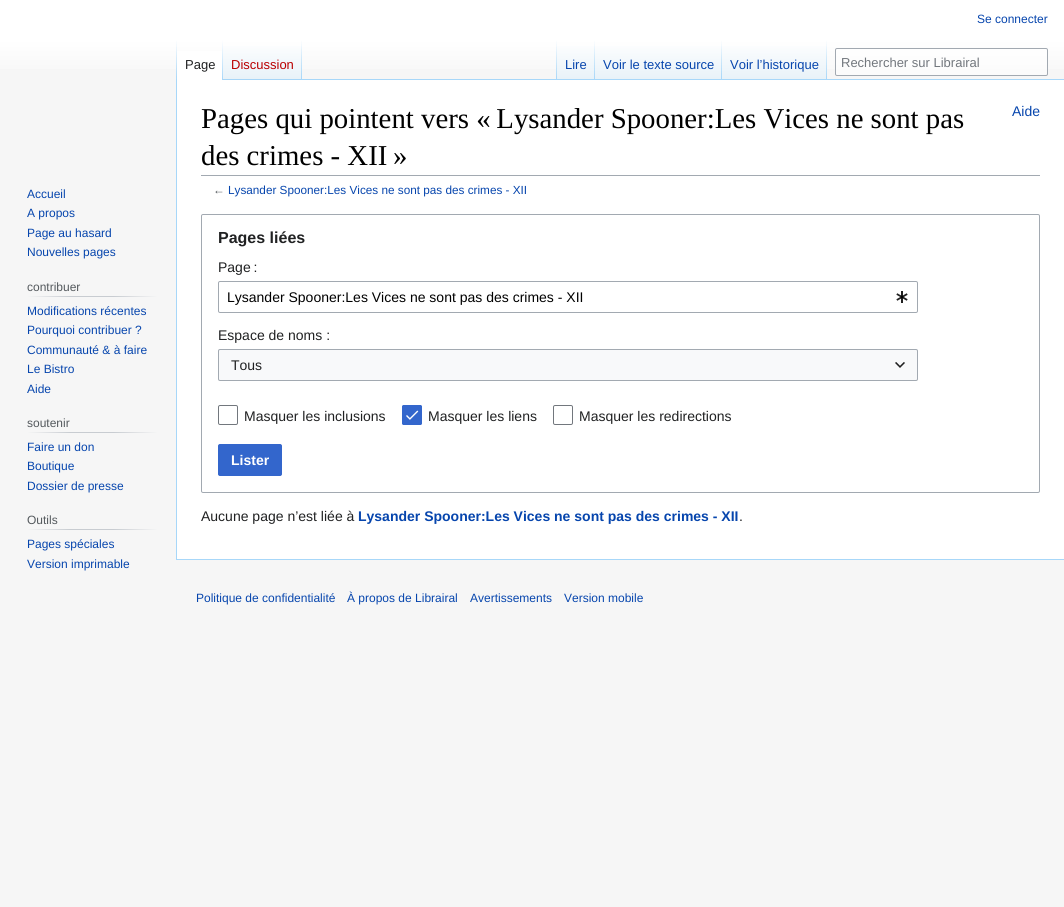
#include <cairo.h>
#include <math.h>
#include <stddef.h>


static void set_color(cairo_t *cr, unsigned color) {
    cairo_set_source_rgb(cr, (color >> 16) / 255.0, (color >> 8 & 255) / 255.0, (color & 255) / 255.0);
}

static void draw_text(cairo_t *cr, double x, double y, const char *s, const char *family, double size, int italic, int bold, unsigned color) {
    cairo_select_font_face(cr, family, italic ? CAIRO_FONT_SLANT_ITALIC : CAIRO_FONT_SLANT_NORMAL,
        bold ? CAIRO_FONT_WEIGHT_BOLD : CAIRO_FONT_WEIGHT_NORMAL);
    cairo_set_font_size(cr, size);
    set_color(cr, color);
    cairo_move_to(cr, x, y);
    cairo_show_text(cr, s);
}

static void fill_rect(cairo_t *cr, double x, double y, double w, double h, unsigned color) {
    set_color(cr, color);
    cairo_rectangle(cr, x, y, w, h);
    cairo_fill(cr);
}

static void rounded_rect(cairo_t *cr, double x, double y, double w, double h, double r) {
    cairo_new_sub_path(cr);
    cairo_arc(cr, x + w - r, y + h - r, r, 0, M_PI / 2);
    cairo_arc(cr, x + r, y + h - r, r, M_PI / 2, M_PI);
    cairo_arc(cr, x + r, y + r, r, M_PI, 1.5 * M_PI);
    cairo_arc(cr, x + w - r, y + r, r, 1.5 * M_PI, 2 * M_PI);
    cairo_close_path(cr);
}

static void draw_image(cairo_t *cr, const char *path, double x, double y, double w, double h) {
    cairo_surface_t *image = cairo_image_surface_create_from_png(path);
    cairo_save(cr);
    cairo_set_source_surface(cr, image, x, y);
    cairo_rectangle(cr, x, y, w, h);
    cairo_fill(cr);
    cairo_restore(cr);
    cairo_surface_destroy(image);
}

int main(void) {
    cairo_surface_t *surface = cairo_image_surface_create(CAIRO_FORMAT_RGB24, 1064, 907);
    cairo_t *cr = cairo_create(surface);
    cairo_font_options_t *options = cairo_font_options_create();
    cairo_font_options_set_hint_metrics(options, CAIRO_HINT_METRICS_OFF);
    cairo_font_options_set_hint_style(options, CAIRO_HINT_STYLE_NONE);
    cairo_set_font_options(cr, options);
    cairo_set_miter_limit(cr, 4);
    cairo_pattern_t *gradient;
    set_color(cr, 0xF6F6F6);
    cairo_paint(cr);
    gradient = cairo_pattern_create_linear(532, 0, 532, 80);
    cairo_pattern_add_color_stop_rgba(gradient, 0.5, 1, 1, 1, 1);
    cairo_pattern_add_color_stop_rgba(gradient, 1, 0.965, 0.965, 0.965, 1);
    cairo_set_source(cr, gradient);
    cairo_pattern_destroy(gradient);
    cairo_rectangle(cr, 0, 0, 1064, 69);
    cairo_fill(cr);
    draw_text(cr, 977, 23, "Se connecter", "Liberation Sans", 12, 0, 0, 0x0645AD);
    fill_rect(cr, 176, 559, 888, 1, 0xA7D7F9);
    fill_rect(cr, 176, 79, 1, 481, 0xA7D7F9);
    gradient = cairo_pattern_create_linear(177, 40, 177, 80);
    cairo_pattern_add_color_stop_rgba(gradient, 0, 0.655, 0.843, 0.976, 0);
    cairo_pattern_add_color_stop_rgba(gradient, 1, 0.655, 0.843, 0.976, 1);
    cairo_set_source(cr, gradient);
    cairo_pattern_destroy(gradient);
    cairo_rectangle(cr, 176, 40, 1, 40);
    cairo_fill(cr);
    fill_rect(cr, 177, 51, 45, 29, 0xFFFFFF);
    gradient = cairo_pattern_create_linear(223, 40, 223, 80);
    cairo_pattern_add_color_stop_rgba(gradient, 0, 1, 1, 1, 1);
    cairo_pattern_add_color_stop_rgba(gradient, 1, 0.655, 0.843, 0.976, 1);
    cairo_set_source(cr, gradient);
    cairo_pattern_destroy(gradient);
    cairo_rectangle(cr, 222, 40, 1, 40);
    cairo_fill(cr);
    draw_text(cr, 185, 69, "Page", "Liberation Sans", 13, 0, 0, 0x202122);
    gradient = cairo_pattern_create_linear(263, 80, 263, 40);
    cairo_pattern_add_color_stop_rgba(gradient, 0, 0.467, 0.757, 0.965, 1);
    cairo_pattern_add_color_stop_rgba(gradient, 0.03, 0.91, 0.949, 0.973, 1);
    cairo_pattern_add_color_stop_rgba(gradient, 1, 1, 1, 1, 1);
    cairo_set_source(cr, gradient);
    cairo_pattern_destroy(gradient);
    cairo_rectangle(cr, 223, 46, 79, 34);
    cairo_fill(cr);
    gradient = cairo_pattern_create_linear(302, 40, 302, 80);
    cairo_pattern_add_color_stop_rgba(gradient, 0, 0.655, 0.843, 0.976, 0);
    cairo_pattern_add_color_stop_rgba(gradient, 1, 0.655, 0.843, 0.976, 1);
    cairo_set_source(cr, gradient);
    cairo_pattern_destroy(gradient);
    cairo_rectangle(cr, 301, 40, 1, 40);
    cairo_fill(cr);
    draw_text(cr, 231, 69, "Discussion", "Liberation Sans", 13, 0, 0, 0xBA0000);
    fill_rect(cr, 302, 79, 762, 1, 0xA7D7F9);
    gradient = cairo_pattern_create_linear(557, 40, 557, 80);
    cairo_pattern_add_color_stop_rgba(gradient, 0, 0.655, 0.843, 0.976, 0);
    cairo_pattern_add_color_stop_rgba(gradient, 1, 0.655, 0.843, 0.976, 1);
    cairo_set_source(cr, gradient);
    cairo_pattern_destroy(gradient);
    cairo_rectangle(cr, 556, 40, 1, 40);
    cairo_fill(cr);
    gradient = cairo_pattern_create_linear(576, 80, 576, 40);
    cairo_pattern_add_color_stop_rgba(gradient, 0, 0.467, 0.757, 0.965, 1);
    cairo_pattern_add_color_stop_rgba(gradient, 0.03, 0.91, 0.949, 0.973, 1);
    cairo_pattern_add_color_stop_rgba(gradient, 1, 1, 1, 1, 1);
    cairo_set_source(cr, gradient);
    cairo_pattern_destroy(gradient);
    cairo_rectangle(cr, 557, 46, 38, 33);
    cairo_fill(cr);
    gradient = cairo_pattern_create_linear(595, 40, 595, 80);
    cairo_pattern_add_color_stop_rgba(gradient, 0, 0.655, 0.843, 0.976, 0);
    cairo_pattern_add_color_stop_rgba(gradient, 1, 0.655, 0.843, 0.976, 1);
    cairo_set_source(cr, gradient);
    cairo_pattern_destroy(gradient);
    cairo_rectangle(cr, 594, 40, 1, 40);
    cairo_fill(cr);
    draw_text(cr, 565, 69, "Lire", "Liberation Sans", 13, 0, 0, 0x0645AD);
    gradient = cairo_pattern_create_linear(659, 80, 659, 40);
    cairo_pattern_add_color_stop_rgba(gradient, 0, 0.467, 0.757, 0.965, 1);
    cairo_pattern_add_color_stop_rgba(gradient, 0.03, 0.91, 0.949, 0.973, 1);
    cairo_pattern_add_color_stop_rgba(gradient, 1, 1, 1, 1, 1);
    cairo_set_source(cr, gradient);
    cairo_pattern_destroy(gradient);
    cairo_rectangle(cr, 595, 46, 127, 33);
    cairo_fill(cr);
    gradient = cairo_pattern_create_linear(722, 40, 722, 80);
    cairo_pattern_add_color_stop_rgba(gradient, 0, 0.655, 0.843, 0.976, 0);
    cairo_pattern_add_color_stop_rgba(gradient, 1, 0.655, 0.843, 0.976, 1);
    cairo_set_source(cr, gradient);
    cairo_pattern_destroy(gradient);
    cairo_rectangle(cr, 721, 40, 1, 40);
    cairo_fill(cr);
    draw_text(cr, 603, 69, "Voir le texte source", "Liberation Sans", 13, 0, 0, 0x0645AD);
    gradient = cairo_pattern_create_linear(775, 80, 775, 40);
    cairo_pattern_add_color_stop_rgba(gradient, 0, 0.467, 0.757, 0.965, 1);
    cairo_pattern_add_color_stop_rgba(gradient, 0.03, 0.91, 0.949, 0.973, 1);
    cairo_pattern_add_color_stop_rgba(gradient, 1, 1, 1, 1, 1);
    cairo_set_source(cr, gradient);
    cairo_pattern_destroy(gradient);
    cairo_rectangle(cr, 722, 46, 105, 33);
    cairo_fill(cr);
    gradient = cairo_pattern_create_linear(827, 40, 827, 80);
    cairo_pattern_add_color_stop_rgba(gradient, 0, 0.655, 0.843, 0.976, 0);
    cairo_pattern_add_color_stop_rgba(gradient, 1, 0.655, 0.843, 0.976, 1);
    cairo_set_source(cr, gradient);
    cairo_pattern_destroy(gradient);
    cairo_rectangle(cr, 826, 40, 1, 40);
    cairo_fill(cr);
    draw_text(cr, 730, 69, "Voir l’historique", "Liberation Sans", 13, 0, 0, 0x0645AD);
    cairo_set_source_rgba(cr, 1, 1, 1, 0.5);
    rounded_rect(cr, 835.5, 48.5, 212, 27, 1.5);
    cairo_fill_preserve(cr);
    set_color(cr, 0xA2A9B1);
    cairo_set_line_width(cr, 1);
    cairo_stroke(cr);
    draw_text(cr, 841, 67, "Rechercher sur Librairal", "Liberation Sans", 13, 0, 0, 0x72777D);
    draw_text(cr, 27, 198, "Accueil", "Liberation Sans", 12, 0, 0, 0x0645AD);
    draw_text(cr, 27, 217, "A propos", "Liberation Sans", 12, 0, 0, 0x0645AD);
    draw_text(cr, 27, 237, "Page au hasard", "Liberation Sans", 12, 0, 0, 0x0645AD);
    draw_text(cr, 27, 256, "Nouvelles pages", "Liberation Sans", 12, 0, 0, 0x0645AD);
    gradient = cairo_pattern_create_linear(27, 297, 158, 297);
    cairo_pattern_add_color_stop_rgba(gradient, 0, 0.965, 0.965, 0.965, 1);
    cairo_pattern_add_color_stop_rgba(gradient, 0.33, 0.784, 0.8, 0.82, 1);
    cairo_pattern_add_color_stop_rgba(gradient, 0.66, 0.784, 0.8, 0.82, 1);
    cairo_pattern_add_color_stop_rgba(gradient, 1, 0.965, 0.965, 0.965, 1);
    cairo_set_source(cr, gradient);
    cairo_pattern_destroy(gradient);
    cairo_rectangle(cr, 27, 296, 131, 1);
    cairo_fill(cr);
    draw_text(cr, 27, 291, "contribuer", "Liberation Sans", 12, 0, 0, 0x54595D);
    draw_text(cr, 27, 315, "Modifications récentes", "Liberation Sans", 12, 0, 0, 0x0645AD);
    draw_text(cr, 27, 334, "Pourquoi contribuer ?", "Liberation Sans", 12, 0, 0, 0x0645AD);
    draw_text(cr, 27, 354, "Communauté & à faire", "Liberation Sans", 12, 0, 0, 0x0645AD);
    draw_text(cr, 27, 373, "Le Bistro", "Liberation Sans", 12, 0, 0, 0x0645AD);
    draw_text(cr, 27, 393, "Aide", "Liberation Sans", 12, 0, 0, 0x0645AD);
    gradient = cairo_pattern_create_linear(27, 433, 158, 433);
    cairo_pattern_add_color_stop_rgba(gradient, 0, 0.965, 0.965, 0.965, 1);
    cairo_pattern_add_color_stop_rgba(gradient, 0.33, 0.784, 0.8, 0.82, 1);
    cairo_pattern_add_color_stop_rgba(gradient, 0.66, 0.784, 0.8, 0.82, 1);
    cairo_pattern_add_color_stop_rgba(gradient, 1, 0.965, 0.965, 0.965, 1);
    cairo_set_source(cr, gradient);
    cairo_pattern_destroy(gradient);
    cairo_rectangle(cr, 27, 432, 131, 1);
    cairo_fill(cr);
    draw_text(cr, 27, 427, "soutenir", "Liberation Sans", 12, 0, 0, 0x54595D);
    draw_text(cr, 27, 451, "Faire un don", "Liberation Sans", 12, 0, 0, 0x0645AD);
    draw_text(cr, 27, 470, "Boutique", "Liberation Sans", 12, 0, 0, 0x0645AD);
    draw_text(cr, 27, 490, "Dossier de presse", "Liberation Sans", 12, 0, 0, 0x0645AD);
    gradient = cairo_pattern_create_linear(27, 530, 158, 530);
    cairo_pattern_add_color_stop_rgba(gradient, 0, 0.965, 0.965, 0.965, 1);
    cairo_pattern_add_color_stop_rgba(gradient, 0.33, 0.784, 0.8, 0.82, 1);
    cairo_pattern_add_color_stop_rgba(gradient, 0.66, 0.784, 0.8, 0.82, 1);
    cairo_pattern_add_color_stop_rgba(gradient, 1, 0.965, 0.965, 0.965, 1);
    cairo_set_source(cr, gradient);
    cairo_pattern_destroy(gradient);
    cairo_rectangle(cr, 27, 529, 131, 1);
    cairo_fill(cr);
    draw_text(cr, 27, 524, "Outils", "Liberation Sans", 12, 0, 0, 0x54595D);
    draw_text(cr, 27, 548, "Pages spéciales", "Liberation Sans", 12, 0, 0, 0x0645AD);
    draw_text(cr, 27, 568, "Version imprimable", "Liberation Sans", 12, 0, 0, 0x0645AD);
    fill_rect(cr, 177, 80, 887, 479, 0xFFFFFF);
    fill_rect(cr, 201, 175, 839, 1, 0xA2A9B1);
    draw_text(cr, 201, 128, "Pages qui pointent vers « Lysander Spooner:Les Vices ne sont pas", "Liberation Serif", 28.8, 0, 0, 0x000000);
    draw_text(cr, 201, 165, "des crimes - XII »", "Liberation Serif", 28.8, 0, 0, 0x000000);
    draw_text(cr, 1012, 116, "Aide", "Liberation Sans", 14, 0, 0, 0x0645AD);
    draw_text(cr, 213, 194, "←", "Liberation Sans", 11.75, 0, 0, 0x54595D);
    draw_text(cr, 228, 194, "Lysander Spooner:Les Vices ne sont pas des crimes - XII", "Liberation Sans", 11.75, 0, 0, 0x0645AD);
    rounded_rect(cr, 201.5, 214.5, 838, 278, 1.5);
    set_color(cr, 0xA2A9B1);
    cairo_stroke(cr);
    draw_text(cr, 218, 243, "Pages liées", "Liberation Sans", 16, 0, 1, 0x202122);
    draw_text(cr, 218, 272, "Page :", "Liberation Sans", 14, 0, 0, 0x202122);
    rounded_rect(cr, 218.5, 281.5, 699, 31, 1.5);
    set_color(cr, 0xA2A9B1);
    cairo_stroke(cr);
    draw_text(cr, 227, 302, "Lysander Spooner:Les Vices ne sont pas des crimes - XII", "Liberation Sans", 14, 0, 0, 0x000000);
    draw_image(cr, "assets/img1.png", 896, 291, 12, 12);
    draw_text(cr, 218, 340, "Espace de noms :", "Liberation Sans", 14, 0, 0, 0x202122);
    fill_rect(cr, 218, 349, 700, 32, 0xF8F9FA);
    rounded_rect(cr, 218.5, 349.5, 699, 31, 1.5);
    set_color(cr, 0xA2A9B1);
    cairo_stroke(cr);
    draw_text(cr, 231, 370, "Tous", "Liberation Sans", 14, 0, 0, 0x202122);
    draw_image(cr, "assets/img2.png", 895, 362, 10, 6);
    rounded_rect(cr, 218.5, 405.5, 19, 19, 1.5);
    set_color(cr, 0x72777D);
    cairo_stroke(cr);
    draw_text(cr, 244, 421, "Masquer les inclusions", "Liberation Sans", 14, 0, 0, 0x202122);
    set_color(cr, 0x3366CC);
    rounded_rect(cr, 402, 405, 20, 20, 2);
    cairo_fill(cr);
    draw_image(cr, "assets/img3.png", 406, 410, 13, 10);
    rounded_rect(cr, 402.5, 405.5, 19, 19, 1.5);
    cairo_stroke(cr);
    draw_text(cr, 428, 421, "Masquer les liens", "Liberation Sans", 14, 0, 0, 0x202122);
    rounded_rect(cr, 553.5, 405.5, 19, 19, 1.5);
    set_color(cr, 0x72777D);
    cairo_stroke(cr);
    draw_text(cr, 579, 421, "Masquer les redirections", "Liberation Sans", 14, 0, 0, 0x202122);
    set_color(cr, 0x3366CC);
    rounded_rect(cr, 218.5, 444.5, 63, 31, 1.5);
    cairo_fill_preserve(cr);
    cairo_stroke(cr);
    draw_text(cr, 231, 465, "Lister", "Liberation Sans", 14, 0, 1, 0xFFFFFF);
    draw_text(cr, 201, 521, "Aucune page n’est liée à", "Liberation Sans", 14, 0, 0, 0x202122);
    draw_text(cr, 358, 521, "Lysander Spooner:Les Vices ne sont pas des crimes - XII", "Liberation Sans", 14, 0, 1, 0x0645AD);
    draw_text(cr, 739, 521, ".", "Liberation Sans", 14, 0, 0, 0x202122);
    draw_text(cr, 196, 602, "Politique de confidentialité", "Liberation Sans", 12, 0, 0, 0x0645AD);
    draw_text(cr, 347, 602, "À propos de Librairal", "Liberation Sans", 12, 0, 0, 0x0645AD);
    draw_text(cr, 470, 602, "Avertissements", "Liberation Sans", 12, 0, 0, 0x0645AD);
    draw_text(cr, 564, 602, "Version mobile", "Liberation Sans", 12, 0, 0, 0x0645AD);
    cairo_surface_write_to_png(surface, "output.png");
    cairo_font_options_destroy(options);
    cairo_destroy(cr);
    cairo_surface_destroy(surface);
    return 0;
}
